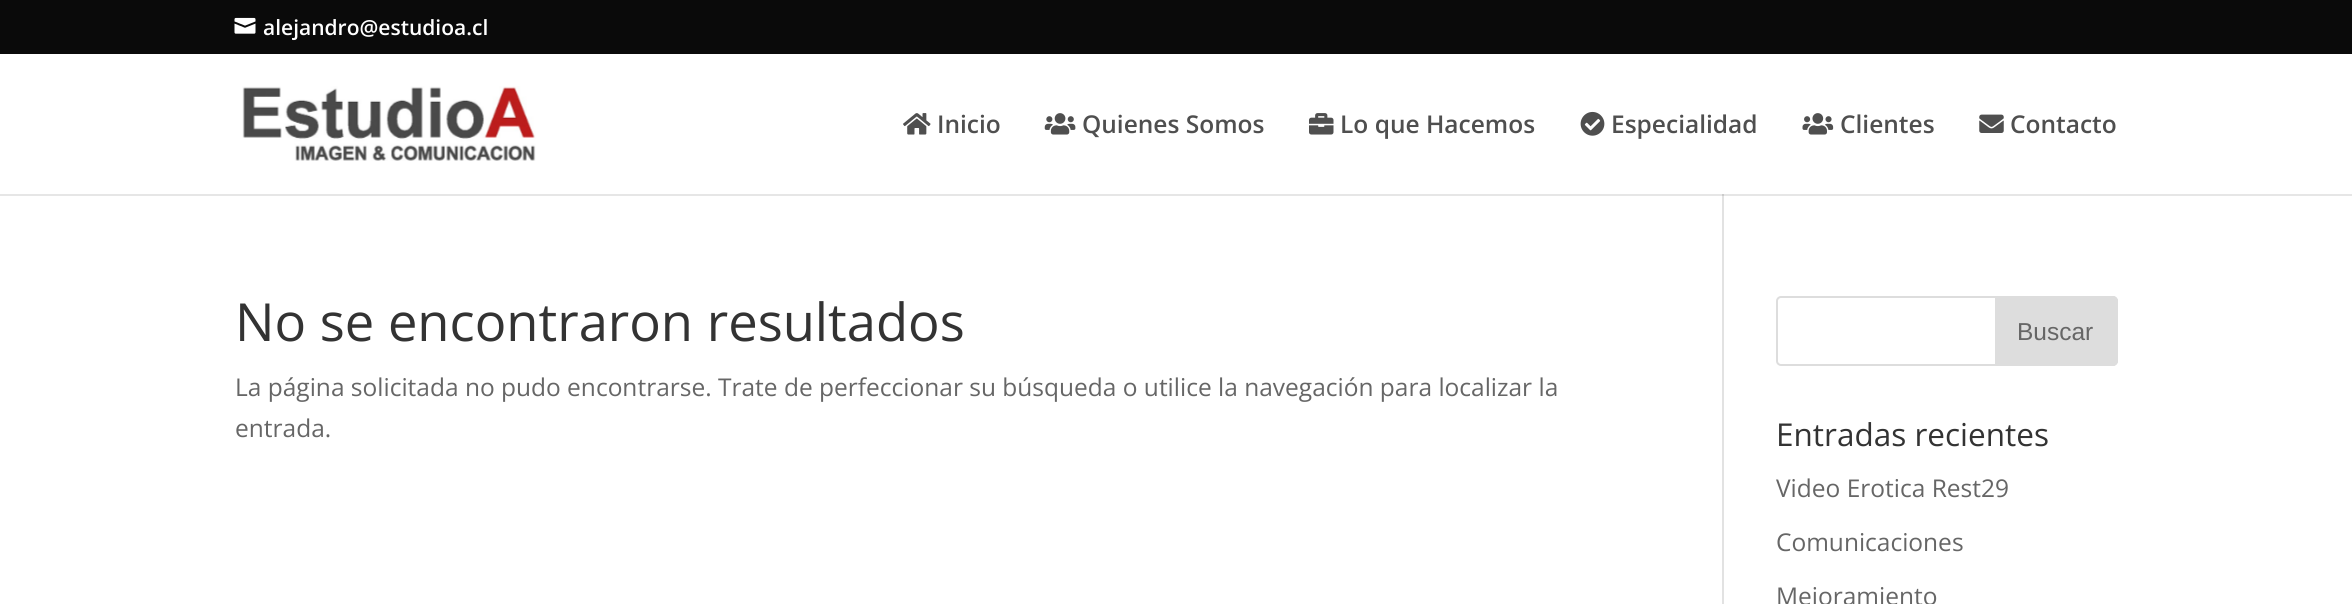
#include <cairo.h>
#include <math.h>
#include <stddef.h>


static void set_color(cairo_t *cr, unsigned color) {
    cairo_set_source_rgb(cr, (color >> 16) / 255.0, (color >> 8 & 255) / 255.0, (color & 255) / 255.0);
}

static void draw_text(cairo_t *cr, double x, double y, const char *s, const char *family, double size, int italic, int bold, unsigned color) {
    cairo_select_font_face(cr, family, italic ? CAIRO_FONT_SLANT_ITALIC : CAIRO_FONT_SLANT_NORMAL,
        bold ? CAIRO_FONT_WEIGHT_BOLD : CAIRO_FONT_WEIGHT_NORMAL);
    cairo_set_font_size(cr, size);
    set_color(cr, color);
    cairo_move_to(cr, x, y);
    cairo_show_text(cr, s);
}

static void fill_rect(cairo_t *cr, double x, double y, double w, double h, unsigned color) {
    set_color(cr, color);
    cairo_rectangle(cr, x, y, w, h);
    cairo_fill(cr);
}

static void rounded_rect(cairo_t *cr, double x, double y, double w, double h, double r) {
    cairo_new_sub_path(cr);
    cairo_arc(cr, x + w - r, y + h - r, r, 0, M_PI / 2);
    cairo_arc(cr, x + r, y + h - r, r, M_PI / 2, M_PI);
    cairo_arc(cr, x + r, y + r, r, M_PI, 1.5 * M_PI);
    cairo_arc(cr, x + w - r, y + r, r, 1.5 * M_PI, 2 * M_PI);
    cairo_close_path(cr);
}

static void draw_image(cairo_t *cr, const char *path, double x, double y, double w, double h) {
    cairo_surface_t *image = cairo_image_surface_create_from_png(path);
    cairo_save(cr);
    cairo_set_source_surface(cr, image, x, y);
    cairo_rectangle(cr, x, y, w, h);
    cairo_fill(cr);
    cairo_restore(cr);
    cairo_surface_destroy(image);
}

int main(void) {
    cairo_surface_t *surface = cairo_image_surface_create(CAIRO_FORMAT_RGB24, 2352, 604);
    cairo_t *cr = cairo_create(surface);
    cairo_font_options_t *options = cairo_font_options_create();
    cairo_font_options_set_hint_metrics(options, CAIRO_HINT_METRICS_OFF);
    cairo_font_options_set_hint_style(options, CAIRO_HINT_STYLE_NONE);
    cairo_set_font_options(cr, options);
    cairo_set_miter_limit(cr, 4);
    set_color(cr, 0xFFFFFF);
    cairo_paint(cr);
    fill_rect(cr, 0, 194, 2352, 2, 0xE6E6E6);
    fill_rect(cr, 0, 0, 2352, 54, 0x0A0A0A);
    draw_image(cr, "assets/img1.png", 234, 17, 22, 17);
    draw_text(cr, 263, 35, "alejandro@estudioa.cl", "Open Sans SemiBold", 21, 0, 0, 0xFFFFFF);
    draw_image(cr, "assets/img2.png", 242, 86, 294, 75);
    draw_image(cr, "assets/img3.png", 903, 113, 28, 22);
    draw_text(cr, 937, 133, "Inicio", "Open Sans SemiBold", 24.5, 0, 0, 0x4F4F4F);
    draw_image(cr, "assets/img4.png", 1044, 113, 32, 22);
    draw_text(cr, 1082, 133, "Quienes Somos", "Open Sans SemiBold", 24.5, 0, 0, 0x4F4F4F);
    draw_image(cr, "assets/img5.png", 1309, 113, 25, 22);
    draw_text(cr, 1340, 133, "Lo que Hacemos", "Open Sans SemiBold", 24.5, 0, 0, 0x4F4F4F);
    draw_image(cr, "assets/img6.png", 1580, 111, 25, 25);
    draw_text(cr, 1611, 133, "Especialidad", "Open Sans SemiBold", 24.5, 0, 0, 0x4F4F4F);
    draw_image(cr, "assets/img7.png", 1802, 113, 32, 22);
    draw_text(cr, 1840, 133, "Clientes", "Open Sans SemiBold", 24.5, 0, 0, 0x4F4F4F);
    draw_image(cr, "assets/img8.png", 1979, 114, 25, 19);
    draw_text(cr, 2010, 133, "Contacto", "Open Sans SemiBold", 24.5, 0, 0, 0x4F4F4F);
    fill_rect(cr, 1722, 194, 2, 410, 0xE2E2E2);
    fill_rect(cr, 1722, 194, 2, 2, 0xCBCBCB);
    draw_text(cr, 235, 341, "No se encontraron resultados", "Open Sans", 52.5, 0, 0, 0x333333);
    draw_text(cr, 235, 396, "La página solicitada no pudo encontrarse. Trate de perfeccionar su búsqueda o utilice la navegación para localizar la", "Open Sans", 24.5, 0, 0, 0x666666);
    draw_text(cr, 235, 437, "entrada.", "Open Sans", 24.5, 0, 0, 0x666666);
    rounded_rect(cr, 1777, 297, 340, 68, 4);
    set_color(cr, 0xDDDDDD);
    cairo_stroke(cr);
    cairo_new_path(cr);
    cairo_move_to(cr, 1996, 297);
    cairo_line_to(cr, 2113, 297);
    cairo_curve_to(cr, 2115, 297, 2117, 299, 2117, 301);
    cairo_line_to(cr, 2117, 361);
    cairo_curve_to(cr, 2117, 363, 2115, 365, 2113, 365);
    cairo_line_to(cr, 1996, 365);
    cairo_close_path(cr);
    cairo_fill_preserve(cr);
    cairo_stroke(cr);
    draw_text(cr, 2017, 340, "Buscar", "Liberation Sans", 24.5, 0, 0, 0x666666);
    draw_text(cr, 1776, 446, "Entradas recientes", "Open Sans", 31.5, 0, 0, 0x333333);
    draw_text(cr, 1776, 497, "Video Erotica Rest29", "Open Sans", 24.5, 0, 0, 0x666666);
    draw_text(cr, 1776, 551, "Comunicaciones", "Open Sans", 24.5, 0, 0, 0x666666);
    draw_text(cr, 1776, 605, "Mejoramiento", "Open Sans", 24.5, 0, 0, 0x666666);
    cairo_surface_write_to_png(surface, "output.png");
    cairo_font_options_destroy(options);
    cairo_destroy(cr);
    cairo_surface_destroy(surface);
    return 0;
}
